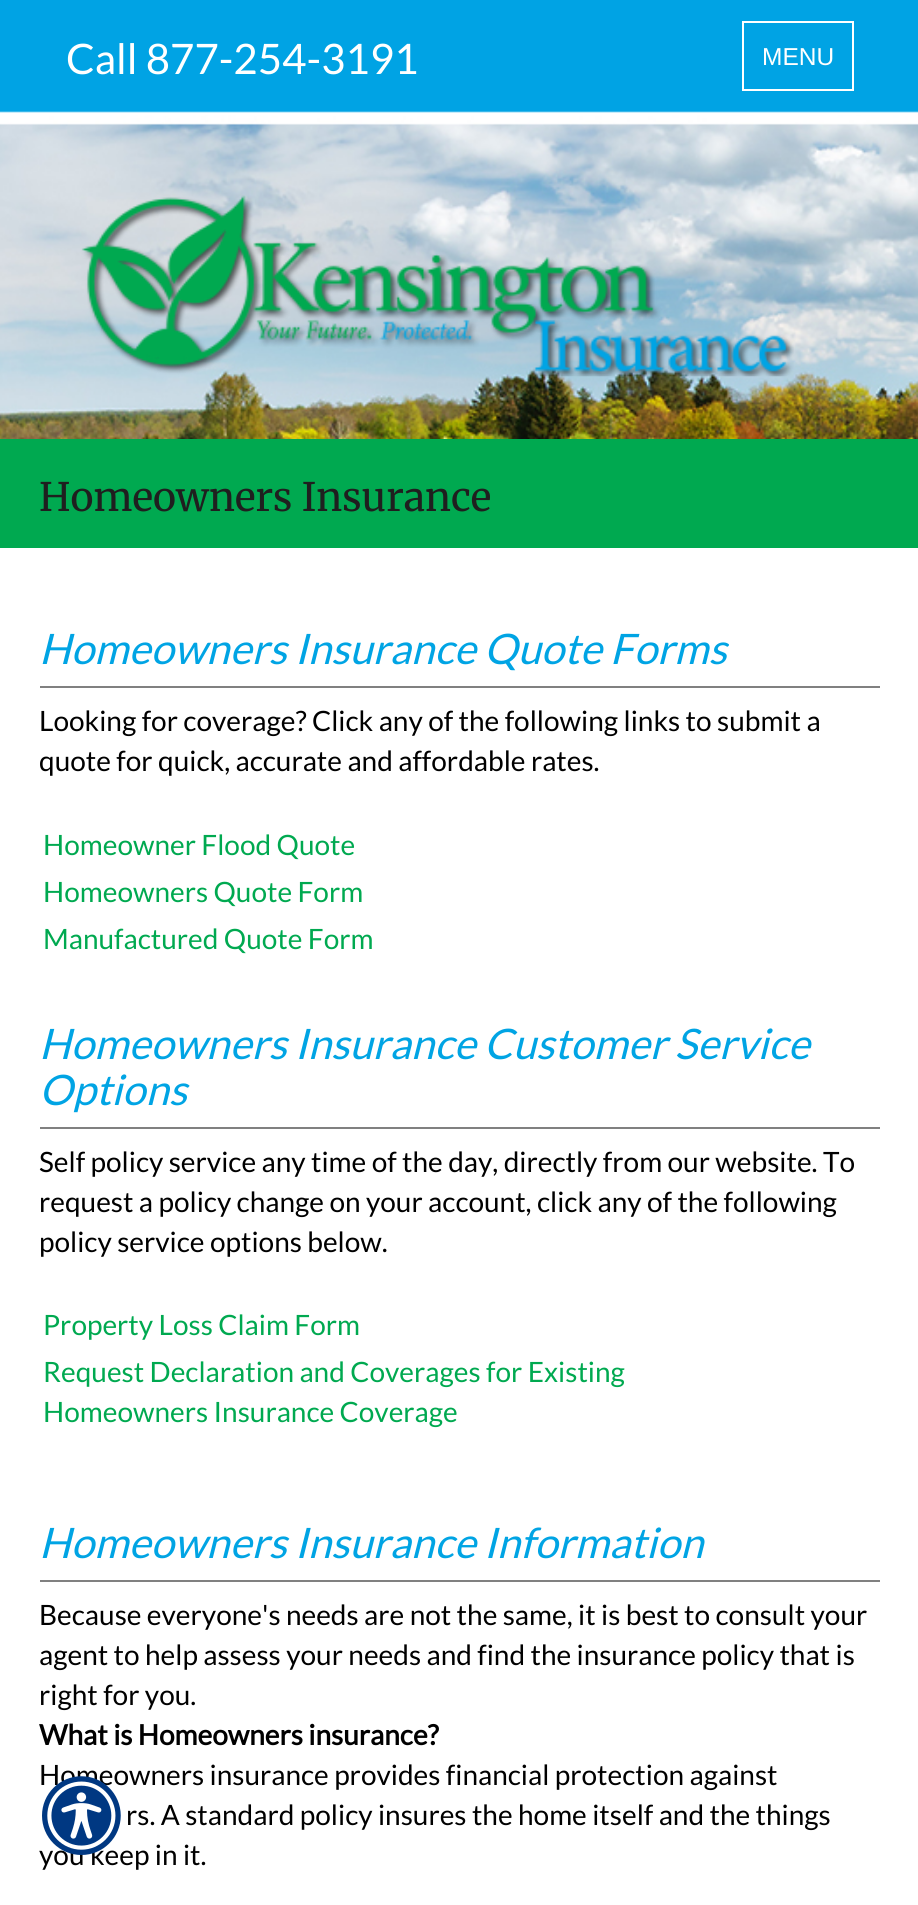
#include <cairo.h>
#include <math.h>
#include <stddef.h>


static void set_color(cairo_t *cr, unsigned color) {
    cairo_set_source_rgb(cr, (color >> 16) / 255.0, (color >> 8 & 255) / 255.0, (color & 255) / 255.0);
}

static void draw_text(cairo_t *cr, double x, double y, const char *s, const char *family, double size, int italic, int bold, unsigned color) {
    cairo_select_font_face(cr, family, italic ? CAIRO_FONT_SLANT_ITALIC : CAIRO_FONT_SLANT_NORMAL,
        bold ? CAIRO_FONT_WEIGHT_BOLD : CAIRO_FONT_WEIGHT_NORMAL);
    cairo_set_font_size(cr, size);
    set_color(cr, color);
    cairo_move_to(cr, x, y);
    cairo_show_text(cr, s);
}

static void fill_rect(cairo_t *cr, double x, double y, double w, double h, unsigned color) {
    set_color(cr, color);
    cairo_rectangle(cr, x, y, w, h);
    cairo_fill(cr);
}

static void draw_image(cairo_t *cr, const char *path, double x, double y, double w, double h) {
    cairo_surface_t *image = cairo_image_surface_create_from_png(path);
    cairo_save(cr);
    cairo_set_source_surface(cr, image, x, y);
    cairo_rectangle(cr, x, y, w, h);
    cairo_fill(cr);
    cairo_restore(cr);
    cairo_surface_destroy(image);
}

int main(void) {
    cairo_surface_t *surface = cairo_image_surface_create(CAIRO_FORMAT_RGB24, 918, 1905);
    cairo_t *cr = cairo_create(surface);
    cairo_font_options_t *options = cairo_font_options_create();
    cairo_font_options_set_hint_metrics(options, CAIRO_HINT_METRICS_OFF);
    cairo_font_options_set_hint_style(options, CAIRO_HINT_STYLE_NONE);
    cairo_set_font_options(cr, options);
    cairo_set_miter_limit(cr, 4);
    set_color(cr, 0xFFFFFF);
    cairo_paint(cr);
    draw_image(cr, "assets/img1.png", 0, 0, 918, 439);
    draw_text(cr, 66, 74, "Call 877-254-3191", "Lato", 42, 0, 0, 0xFFFFFF);
    cairo_rectangle(cr, 743, 22, 110, 68);
    cairo_stroke(cr);
    draw_text(cr, 762, 65, "MENU", "Liberation Sans", 24.5, 0, 0, 0xFFFFFF);
    draw_image(cr, "assets/img2.png", 0, 111, 918, 4);
    fill_rect(cr, 0, 439, 918, 109, 0x00A950);
    draw_image(cr, "assets/img3.png", 81, 195, 713, 182);
    draw_text(cr, 39, 511, "Homeowners Insurance", "Merriweather Light", 39.25, 0, 0, 0x1F1F1F);
    fill_rect(cr, 40, 686, 840, 2, 0x808080);
    draw_text(cr, 39, 664, "Homeowners Insurance Quote Forms", "Lato", 42, 1, 0, 0x00A4E4);
    draw_text(cr, 39, 731, "Looking for coverage? Click any of the following links to submit a", "Lato", 28, 0, 0, 0x000000);
    draw_text(cr, 39, 771, "quote for quick, accurate and affordable rates.", "Lato", 28, 0, 0, 0x000000);
    draw_text(cr, 43, 855, "Homeowner Flood Quote", "Lato", 28, 0, 0, 0x00A950);
    draw_text(cr, 43, 902, "Homeowners Quote Form", "Lato", 28, 0, 0, 0x00A950);
    draw_text(cr, 43, 949, "Manufactured Quote Form", "Lato", 28, 0, 0, 0x00A950);
    fill_rect(cr, 40, 1127, 840, 2, 0x808080);
    draw_text(cr, 39, 1059, "Homeowners Insurance Customer Service", "Lato", 42, 1, 0, 0x00A4E4);
    draw_text(cr, 39, 1105, "Options", "Lato", 42, 1, 0, 0x00A4E4);
    draw_text(cr, 39, 1172, "Self policy service any time of the day, directly from our website. To", "Lato", 28, 0, 0, 0x000000);
    draw_text(cr, 39, 1212, "request a policy change on your account, click any of the following", "Lato", 28, 0, 0, 0x000000);
    draw_text(cr, 39, 1252, "policy service options below.", "Lato", 28, 0, 0, 0x000000);
    draw_text(cr, 43, 1335, "Property Loss Claim Form", "Lato", 28, 0, 0, 0x00A950);
    draw_text(cr, 43, 1382, "Request Declaration and Coverages for Existing", "Lato", 28, 0, 0, 0x00A950);
    draw_text(cr, 43, 1422, "Homeowners Insurance Coverage", "Lato", 28, 0, 0, 0x00A950);
    fill_rect(cr, 40, 1580, 840, 2, 0x808080);
    draw_text(cr, 39, 1558, "Homeowners Insurance Information", "Lato", 42, 1, 0, 0x00A4E4);
    draw_text(cr, 39, 1625, "Because everyone's needs are not the same, it is best to consult your", "Lato", 28, 0, 0, 0x000000);
    draw_text(cr, 39, 1665, "agent to help assess your needs and find the insurance policy that is", "Lato", 28, 0, 0, 0x000000);
    draw_text(cr, 39, 1705, "right for you.", "Lato", 28, 0, 0, 0x000000);
    draw_text(cr, 39, 1745, "What is Homeowners insurance?", "Lato", 28, 0, 1, 0x000000);
    draw_text(cr, 39, 1785, "Homeowners insurance provides financial protection against", "Lato", 28, 0, 0, 0x000000);
    draw_text(cr, 126, 1825, "rs. A standard policy insures the home itself and the things", "Lato", 28, 0, 0, 0x000000);
    draw_text(cr, 39, 1865, "you keep in it.", "Lato", 28, 0, 0, 0x000000);
    draw_image(cr, "assets/img4.png", 42, 1776, 79, 79);
    cairo_surface_write_to_png(surface, "output.png");
    cairo_font_options_destroy(options);
    cairo_destroy(cr);
    cairo_surface_destroy(surface);
    return 0;
}
